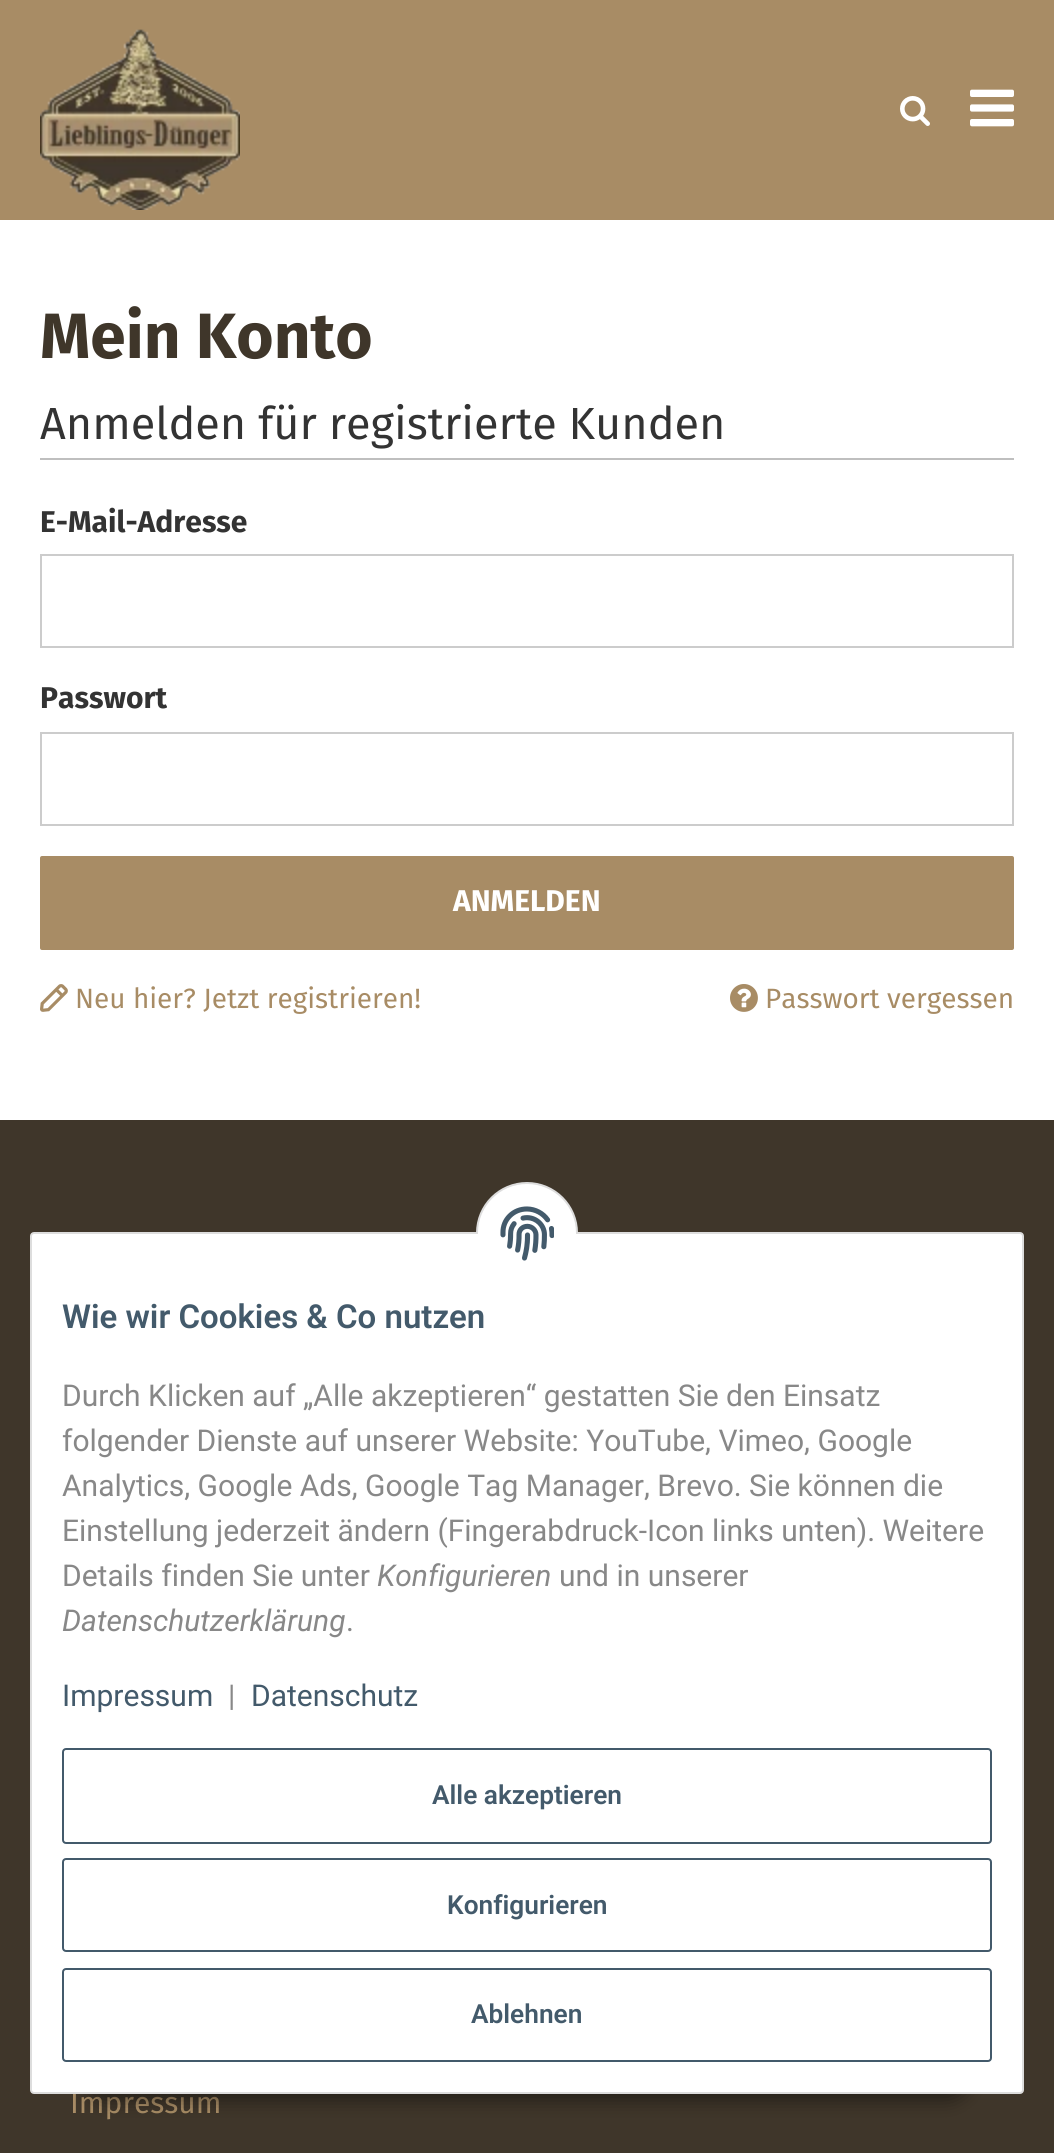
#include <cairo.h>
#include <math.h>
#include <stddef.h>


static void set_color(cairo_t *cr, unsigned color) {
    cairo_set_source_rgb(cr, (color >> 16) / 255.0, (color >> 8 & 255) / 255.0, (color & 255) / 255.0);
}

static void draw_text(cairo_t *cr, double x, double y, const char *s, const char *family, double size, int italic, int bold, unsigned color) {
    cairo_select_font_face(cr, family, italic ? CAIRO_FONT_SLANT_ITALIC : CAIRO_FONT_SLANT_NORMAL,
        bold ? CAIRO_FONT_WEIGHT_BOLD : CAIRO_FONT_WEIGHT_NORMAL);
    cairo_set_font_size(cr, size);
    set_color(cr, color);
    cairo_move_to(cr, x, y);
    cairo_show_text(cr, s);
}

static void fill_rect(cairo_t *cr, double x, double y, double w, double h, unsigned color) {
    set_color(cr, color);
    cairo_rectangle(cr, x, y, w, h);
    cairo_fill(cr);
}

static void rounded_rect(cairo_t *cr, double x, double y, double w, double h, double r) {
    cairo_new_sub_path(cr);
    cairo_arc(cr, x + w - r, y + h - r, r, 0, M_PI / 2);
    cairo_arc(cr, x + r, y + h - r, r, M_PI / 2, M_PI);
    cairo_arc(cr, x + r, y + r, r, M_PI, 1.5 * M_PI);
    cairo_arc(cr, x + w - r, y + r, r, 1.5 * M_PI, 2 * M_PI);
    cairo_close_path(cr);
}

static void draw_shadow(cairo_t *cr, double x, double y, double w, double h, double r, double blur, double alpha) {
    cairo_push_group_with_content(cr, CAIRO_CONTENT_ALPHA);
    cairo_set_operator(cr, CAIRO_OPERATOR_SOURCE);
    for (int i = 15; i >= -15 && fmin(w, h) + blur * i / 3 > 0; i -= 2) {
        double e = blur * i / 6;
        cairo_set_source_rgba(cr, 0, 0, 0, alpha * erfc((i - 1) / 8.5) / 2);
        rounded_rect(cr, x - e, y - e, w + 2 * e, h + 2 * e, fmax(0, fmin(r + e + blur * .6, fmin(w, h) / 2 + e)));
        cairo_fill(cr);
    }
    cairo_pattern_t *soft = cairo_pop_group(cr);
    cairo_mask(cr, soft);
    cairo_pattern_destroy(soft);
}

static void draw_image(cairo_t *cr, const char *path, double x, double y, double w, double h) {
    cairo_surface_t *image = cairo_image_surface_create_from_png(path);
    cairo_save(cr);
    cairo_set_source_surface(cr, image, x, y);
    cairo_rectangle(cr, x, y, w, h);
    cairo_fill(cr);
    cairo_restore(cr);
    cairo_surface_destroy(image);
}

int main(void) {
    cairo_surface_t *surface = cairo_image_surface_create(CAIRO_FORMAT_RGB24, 1054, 2153);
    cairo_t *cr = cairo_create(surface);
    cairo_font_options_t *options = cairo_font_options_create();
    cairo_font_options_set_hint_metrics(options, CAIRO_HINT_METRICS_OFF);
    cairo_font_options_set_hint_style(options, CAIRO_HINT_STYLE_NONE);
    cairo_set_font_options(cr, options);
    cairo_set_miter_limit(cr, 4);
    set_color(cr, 0xFFFFFF);
    cairo_paint(cr);
    fill_rect(cr, 0, 0, 1054, 220, 0xA88C65);
    draw_image(cr, "assets/img1.png", 40, 29, 200, 181);
    draw_image(cr, "assets/img2.png", 900, 96, 30, 30);
    draw_image(cr, "assets/img3.png", 970, 89, 44, 38);
    draw_text(cr, 40, 358, "Mein Konto", "Fira Sans", 64, 0, 1, 0x3F362A);
    fill_rect(cr, 40, 458, 974, 2, 0xBFBFBF);
    draw_text(cr, 40, 439, "Anmelden für registrierte Kunden", "Fira Sans", 45, 0, 0, 0x333333);
    draw_text(cr, 40, 532, "E-Mail-Adresse", "Fira Sans", 30, 0, 1, 0x333333);
    cairo_rectangle(cr, 41, 555, 972, 92);
    set_color(cr, 0xCCCCCC);
    cairo_stroke(cr);
    draw_text(cr, 40, 708, "Passwort", "Fira Sans", 30, 0, 1, 0x333333);
    cairo_rectangle(cr, 41, 733, 972, 92);
    set_color(cr, 0xCCCCCC);
    cairo_stroke(cr);
    set_color(cr, 0xA88C65);
    rounded_rect(cr, 40, 856, 974, 94, 2);
    cairo_fill(cr);
    draw_text(cr, 453, 911, "ANMELDEN", "Fira Sans", 30, 0, 1, 0xFFFFFF);
    draw_image(cr, "assets/img4.png", 40, 984, 28, 28);
    draw_text(cr, 75, 1008, "Neu hier? Jetzt registrieren!", "Fira Sans", 27.9, 0, 0, 0xA88C65);
    draw_image(cr, "assets/img5.png", 730, 984, 28, 28);
    draw_text(cr, 765, 1008, "Passwort vergessen", "Fira Sans", 27.9, 0, 0, 0xA88C65);
    fill_rect(cr, 0, 1120, 1054, 1033, 0x3F362A);
    draw_text(cr, 70, 2113, "Impressum", "Fira Sans", 30, 0, 0, 0xA88C65);
    set_color(cr, 0x000000);
    draw_shadow(cr, 82, 2040, 890, 60, 30, 9.5, 0.45);
    set_color(cr, 0xFFFFFF);
    rounded_rect(cr, 31, 1233, 992, 860, 3);
    cairo_fill_preserve(cr);
    set_color(cr, 0xDDDDDD);
    cairo_stroke(cr);
    set_color(cr, 0xFFFFFF);
    rounded_rect(cr, 477, 1183, 100, 102, 50);
    cairo_fill_preserve(cr);
    set_color(cr, 0xDDDDDD);
    cairo_stroke(cr);
    fill_rect(cr, 476, 1234, 102, 52, 0xFFFFFF);
    draw_image(cr, "assets/img6.png", 500, 1206, 54, 55);
    draw_text(cr, 62, 1328, "Wie wir Cookies & Co nutzen", "Roboto SemiBold", 33, 0, 0, 0x435A6B);
    draw_text(cr, 62, 1406, "Durch Klicken auf „Alle akzeptieren“ gestatten Sie den Einsatz", "Roboto", 30, 0, 0, 0x888888);
    draw_text(cr, 62, 1451, "folgender Dienste auf unserer Website: YouTube, Vimeo, Google", "Roboto", 30, 0, 0, 0x888888);
    draw_text(cr, 62, 1496, "Analytics, Google Ads, Google Tag Manager, Brevo. Sie können die", "Roboto", 30, 0, 0, 0x888888);
    draw_text(cr, 62, 1541, "Einstellung jederzeit ändern (Fingerabdruck-Icon links unten). Weitere", "Roboto", 30, 0, 0, 0x888888);
    draw_text(cr, 62, 1586, "Details finden Sie unter", "Roboto", 30, 0, 0, 0x888888);
    draw_text(cr, 377, 1586, "Konfigurieren", "Roboto", 30, 1, 0, 0x888888);
    draw_text(cr, 559, 1586, "und in unserer", "Roboto", 30, 0, 0, 0x888888);
    draw_text(cr, 62, 1631, "Datenschutzerklärung", "Roboto", 30, 1, 0, 0x888888);
    draw_text(cr, 346, 1631, ".", "Roboto", 30, 0, 0, 0x888888);
    draw_text(cr, 62, 1706, "Impressum", "Roboto", 30, 0, 0, 0x435A6B);
    draw_text(cr, 228, 1706, "|", "Roboto", 30, 0, 0, 0x888888);
    draw_text(cr, 251, 1706, "Datenschutz", "Roboto", 30, 0, 0, 0x435A6B);
    rounded_rect(cr, 63, 1749, 928, 94, 3);
    cairo_stroke(cr);
    draw_text(cr, 432, 1804, "Alle akzeptieren", "Roboto SemiBold", 26.25, 0, 0, 0x435A6B);
    rounded_rect(cr, 63, 1859, 928, 92, 3);
    cairo_stroke(cr);
    draw_text(cr, 447, 1914, "Konfigurieren", "Roboto SemiBold", 26.25, 0, 0, 0x435A6B);
    rounded_rect(cr, 63, 1969, 928, 92, 3);
    cairo_stroke(cr);
    draw_text(cr, 471, 2023, "Ablehnen", "Roboto SemiBold", 26.25, 0, 0, 0x435A6B);
    cairo_surface_write_to_png(surface, "output.png");
    cairo_font_options_destroy(options);
    cairo_destroy(cr);
    cairo_surface_destroy(surface);
    return 0;
}
